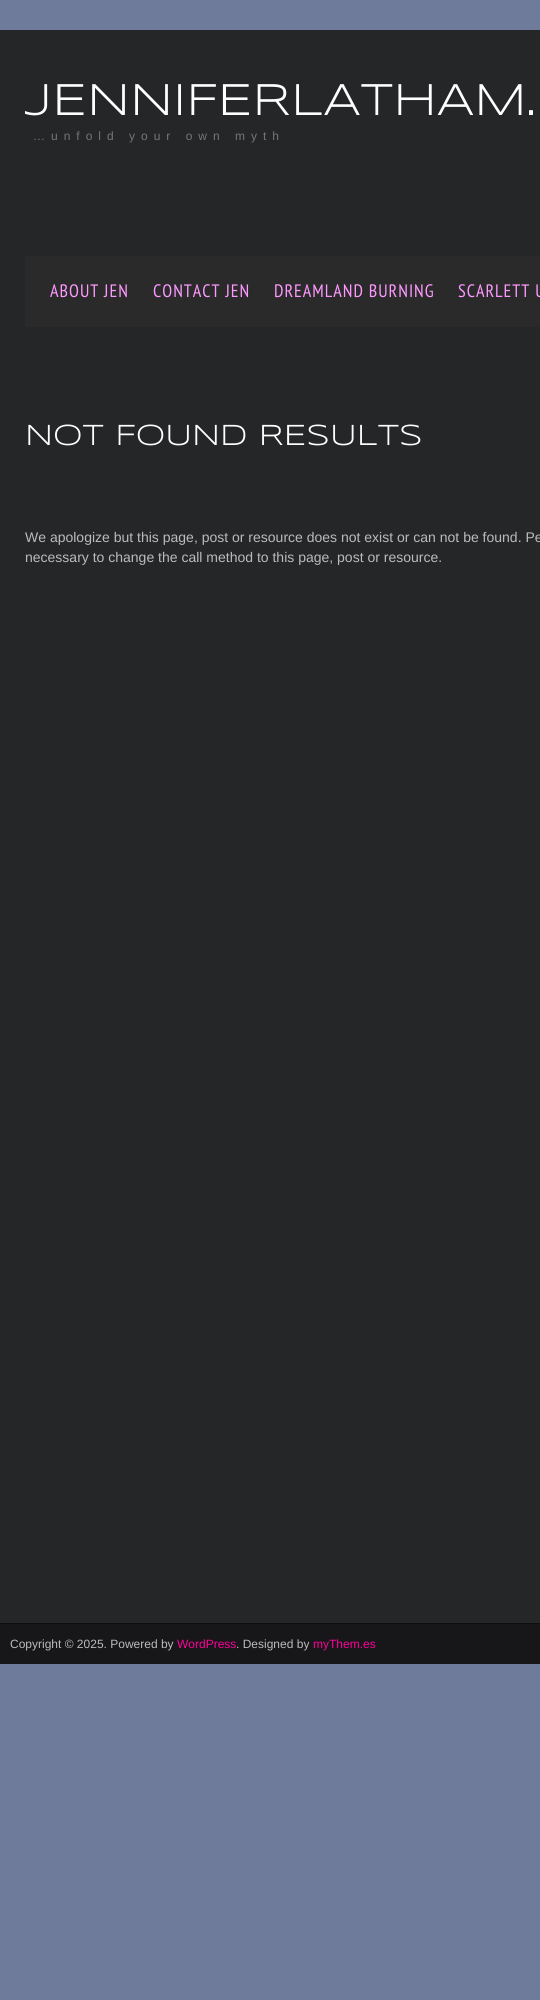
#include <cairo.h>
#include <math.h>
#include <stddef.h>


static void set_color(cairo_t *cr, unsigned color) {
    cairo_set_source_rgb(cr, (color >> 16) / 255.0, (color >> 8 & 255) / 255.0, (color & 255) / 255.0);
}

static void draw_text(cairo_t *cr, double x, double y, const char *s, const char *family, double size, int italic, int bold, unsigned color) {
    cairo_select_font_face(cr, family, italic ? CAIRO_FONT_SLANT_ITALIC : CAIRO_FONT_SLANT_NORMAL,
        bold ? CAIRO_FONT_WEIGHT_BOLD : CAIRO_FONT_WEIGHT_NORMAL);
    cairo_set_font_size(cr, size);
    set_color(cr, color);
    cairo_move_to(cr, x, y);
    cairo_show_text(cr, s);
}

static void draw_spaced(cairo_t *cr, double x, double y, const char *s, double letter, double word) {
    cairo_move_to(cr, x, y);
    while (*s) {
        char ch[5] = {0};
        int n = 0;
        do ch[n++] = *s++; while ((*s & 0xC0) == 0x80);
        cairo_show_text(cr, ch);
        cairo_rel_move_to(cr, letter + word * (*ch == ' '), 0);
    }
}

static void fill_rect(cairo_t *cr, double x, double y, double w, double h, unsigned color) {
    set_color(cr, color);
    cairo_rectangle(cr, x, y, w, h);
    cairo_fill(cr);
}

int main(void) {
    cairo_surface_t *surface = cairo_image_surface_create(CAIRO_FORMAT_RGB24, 540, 2000);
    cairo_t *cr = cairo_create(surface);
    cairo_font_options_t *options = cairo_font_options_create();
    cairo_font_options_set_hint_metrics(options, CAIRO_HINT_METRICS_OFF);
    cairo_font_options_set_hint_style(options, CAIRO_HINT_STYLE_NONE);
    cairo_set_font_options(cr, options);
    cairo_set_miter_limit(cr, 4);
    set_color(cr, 0x6E7B9B);
    cairo_paint(cr);
    fill_rect(cr, 0, 30, 540, 1593, 0x252627);
    draw_text(cr, 25, 115, "JENNIFERLATHAM.", "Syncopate", 46, 0, 0, 0xFFFFFF);
    cairo_select_font_face(cr, "Liberation Sans", CAIRO_FONT_SLANT_NORMAL, CAIRO_FONT_WEIGHT_NORMAL);
    cairo_set_font_size(cr, 12);
    set_color(cr, 0x767676);
    draw_spaced(cr, 33, 140, "…unfold your own myth", 6, 0);
    fill_rect(cr, 25, 256, 515, 71, 0x2A2A2A);
    cairo_select_font_face(cr, "PT Sans Narrow", CAIRO_FONT_SLANT_NORMAL, CAIRO_FONT_WEIGHT_NORMAL);
    cairo_set_font_size(cr, 18);
    set_color(cr, 0xFF99FF);
    draw_spaced(cr, 50, 297, "ABOUT JEN", 1, 0);
    draw_spaced(cr, 153, 297, "CONTACT JEN", 1, 0);
    draw_spaced(cr, 274, 297, "DREAMLAND BURNING", 1, 0);
    draw_spaced(cr, 458, 297, "SCARLETT U", 1, 0);
    draw_text(cr, 25, 445, "NOT FOUND RESULTS", "Syncopate", 30, 0, 0, 0xFFFFFF);
    draw_text(cr, 25, 542, "We apologize but this page, post or resource does not exist or can not be found. Pe", "Liberation Sans", 14, 0, 0, 0xBBBBBB);
    draw_text(cr, 25, 562, "necessary to change the call method to this page, post or resource.", "Liberation Sans", 14, 0, 0, 0xBBBBBB);
    fill_rect(cr, 0, 1624, 540, 40, 0x171719);
    fill_rect(cr, 0, 1623, 540, 1, 0x0E0E0E);
    draw_text(cr, 10, 1648, "Copyright © 2025. Powered by", "Liberation Sans", 12, 0, 0, 0xBBBBBB);
    draw_text(cr, 177, 1648, "WordPress", "Liberation Sans", 12, 0, 0, 0xFF0099);
    draw_text(cr, 236, 1648, ". Designed by", "Liberation Sans", 12, 0, 0, 0xBBBBBB);
    draw_text(cr, 313, 1648, "myThem.es", "Liberation Sans", 12, 0, 0, 0xFF0099);
    cairo_surface_write_to_png(surface, "output.png");
    cairo_font_options_destroy(options);
    cairo_destroy(cr);
    cairo_surface_destroy(surface);
    return 0;
}
